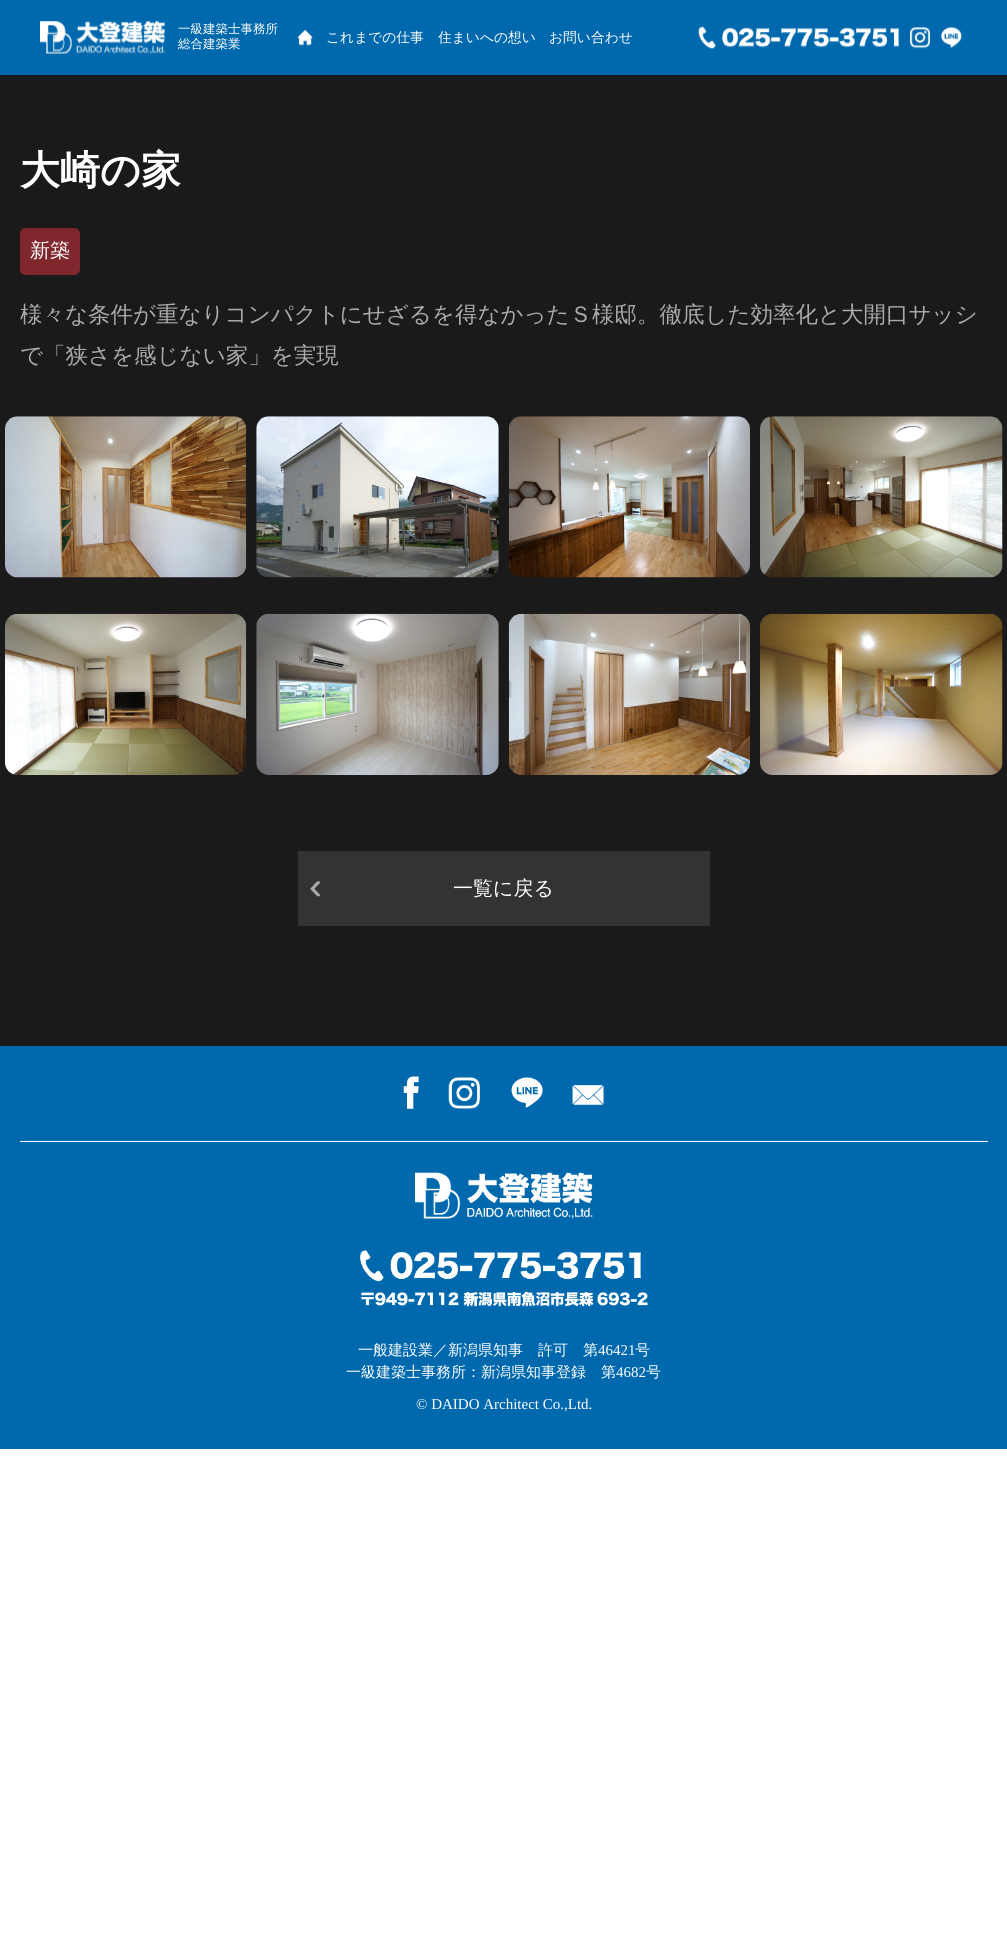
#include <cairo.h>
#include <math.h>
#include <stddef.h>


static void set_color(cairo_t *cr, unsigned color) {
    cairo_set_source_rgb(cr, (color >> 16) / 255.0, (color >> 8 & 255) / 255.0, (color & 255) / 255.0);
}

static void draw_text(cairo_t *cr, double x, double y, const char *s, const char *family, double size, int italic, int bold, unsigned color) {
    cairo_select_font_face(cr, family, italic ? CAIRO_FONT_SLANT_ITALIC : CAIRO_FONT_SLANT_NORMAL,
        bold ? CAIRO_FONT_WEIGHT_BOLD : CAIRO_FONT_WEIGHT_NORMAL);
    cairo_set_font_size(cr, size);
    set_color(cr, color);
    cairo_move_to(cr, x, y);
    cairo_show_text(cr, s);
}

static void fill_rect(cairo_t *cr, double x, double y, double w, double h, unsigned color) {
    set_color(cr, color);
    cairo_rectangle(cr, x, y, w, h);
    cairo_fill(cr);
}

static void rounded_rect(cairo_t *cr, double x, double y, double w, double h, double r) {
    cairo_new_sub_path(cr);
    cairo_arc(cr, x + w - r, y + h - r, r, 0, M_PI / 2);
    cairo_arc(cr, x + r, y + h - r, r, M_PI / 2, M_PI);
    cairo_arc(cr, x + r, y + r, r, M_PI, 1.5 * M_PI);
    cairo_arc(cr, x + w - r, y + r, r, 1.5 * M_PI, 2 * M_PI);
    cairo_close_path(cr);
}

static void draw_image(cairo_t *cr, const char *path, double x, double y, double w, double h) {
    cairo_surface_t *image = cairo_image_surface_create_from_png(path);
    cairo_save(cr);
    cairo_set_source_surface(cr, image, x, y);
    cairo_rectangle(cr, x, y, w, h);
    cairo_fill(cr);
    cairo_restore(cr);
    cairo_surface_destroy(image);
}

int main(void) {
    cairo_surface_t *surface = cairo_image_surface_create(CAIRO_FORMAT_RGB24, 1007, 1952);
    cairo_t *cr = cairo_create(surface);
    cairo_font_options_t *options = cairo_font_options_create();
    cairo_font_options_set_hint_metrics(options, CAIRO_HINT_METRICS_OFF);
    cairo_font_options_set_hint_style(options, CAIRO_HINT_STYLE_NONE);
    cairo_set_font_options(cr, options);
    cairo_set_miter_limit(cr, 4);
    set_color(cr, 0xFFFFFF);
    cairo_paint(cr);
    fill_rect(cr, 0, 75, 1007, 971, 0x1A1A1A);
    fill_rect(cr, 0, 0, 1007, 75, 0x0068AC);
    draw_image(cr, "assets/img1.png", 40, 21, 125, 33);
    draw_text(cr, 178, 33, "一級建築士事務所", "WenQuanYi Zen Hei Medium", 12.5, 0, 0, 0xFFFFFF);
    draw_text(cr, 178, 48, "総合建築業", "WenQuanYi Zen Hei Medium", 12.5, 0, 0, 0xFFFFFF);
    draw_image(cr, "assets/img2.png", 297, 29, 16, 17);
    draw_text(cr, 326, 42, "これまでの仕事", "WenQuanYi Zen Hei Medium", 13.75, 0, 0, 0xFFFFFF);
    draw_text(cr, 438, 42, "住まいへの想い", "WenQuanYi Zen Hei Medium", 13.75, 0, 0, 0xFFFFFF);
    draw_text(cr, 549, 42, "お問い合わせ", "WenQuanYi Zen Hei Medium", 13.75, 0, 0, 0xFFFFFF);
    draw_image(cr, "assets/img3.png", 698, 26, 201, 23);
    draw_image(cr, "assets/img4.png", 910, 27, 20, 22);
    draw_image(cr, "assets/img5.png", 941, 27, 21, 22);
    draw_text(cr, 20, 184, "大崎の家", "WenQuanYi Zen Hei", 40, 0, 1, 0xFFFFFF);
    set_color(cr, 0x80272D);
    rounded_rect(cr, 20, 228, 60, 47, 6);
    cairo_fill(cr);
    draw_text(cr, 30, 257, "新築", "WenQuanYi Zen Hei Medium", 20, 0, 0, 0xFFFFFF);
    draw_text(cr, 20, 322, "様々な条件が重なりコンパクトにせざるを得なかったＳ様邸。徹底した効率化と大開口サッシ", "WenQuanYi Zen Hei Medium", 22.5, 0, 0, 0xAAAAAA);
    draw_text(cr, 20, 363, "で「狭さを感じない家」を実現", "WenQuanYi Zen Hei Medium", 22.5, 0, 0, 0xAAAAAA);
    draw_image(cr, "assets/img6.png", 5, 416, 242, 162);
    draw_image(cr, "assets/img7.png", 256, 416, 243, 162);
    draw_image(cr, "assets/img8.png", 508, 416, 242, 162);
    draw_image(cr, "assets/img9.png", 760, 416, 243, 162);
    draw_image(cr, "assets/img10.png", 5, 613, 242, 162);
    draw_image(cr, "assets/img11.png", 256, 613, 243, 162);
    draw_image(cr, "assets/img12.png", 508, 613, 242, 162);
    draw_image(cr, "assets/img13.png", 760, 613, 243, 162);
    fill_rect(cr, 298, 851, 412, 75, 0x333333);
    draw_image(cr, "assets/img14.png", 310, 881, 10, 16);
    draw_text(cr, 453, 895, "一覧に戻る", "WenQuanYi Zen Hei Medium", 20, 0, 0, 0xFFFFFF);
    fill_rect(cr, 0, 1046, 1007, 403, 0x0068AC);
    draw_image(cr, "assets/img15.png", 403, 1076, 16, 33);
    draw_image(cr, "assets/img16.png", 448, 1077, 32, 32);
    draw_image(cr, "assets/img17.png", 511, 1077, 32, 31);
    draw_image(cr, "assets/img18.png", 572, 1085, 32, 20);
    fill_rect(cr, 20, 1141, 968, 1, 0xFFFFFF);
    draw_image(cr, "assets/img19.png", 415, 1172, 178, 47);
    draw_image(cr, "assets/img20.png", 360, 1250, 288, 57);
    draw_text(cr, 358, 1355, "一般建設業／新潟県知事　許可　第", "WenQuanYi Zen Hei Medium", 15, 0, 0, 0xFFFFFF);
    draw_text(cr, 598, 1355, "46421", "Liberation Serif", 15, 0, 0, 0xFFFFFF);
    draw_text(cr, 635, 1355, "号", "WenQuanYi Zen Hei Medium", 15, 0, 0, 0xFFFFFF);
    draw_text(cr, 346, 1377, "一級建築士事務所：新潟県知事登録　第", "WenQuanYi Zen Hei Medium", 15, 0, 0, 0xFFFFFF);
    draw_text(cr, 616, 1377, "4682", "Liberation Serif", 15, 0, 0, 0xFFFFFF);
    draw_text(cr, 646, 1377, "号", "WenQuanYi Zen Hei Medium", 15, 0, 0, 0xFFFFFF);
    draw_text(cr, 416, 1409, "© DAIDO Architect Co.,Ltd.", "Liberation Serif", 15, 0, 0, 0xFFFFFF);
    cairo_surface_write_to_png(surface, "output.png");
    cairo_font_options_destroy(options);
    cairo_destroy(cr);
    cairo_surface_destroy(surface);
    return 0;
}
